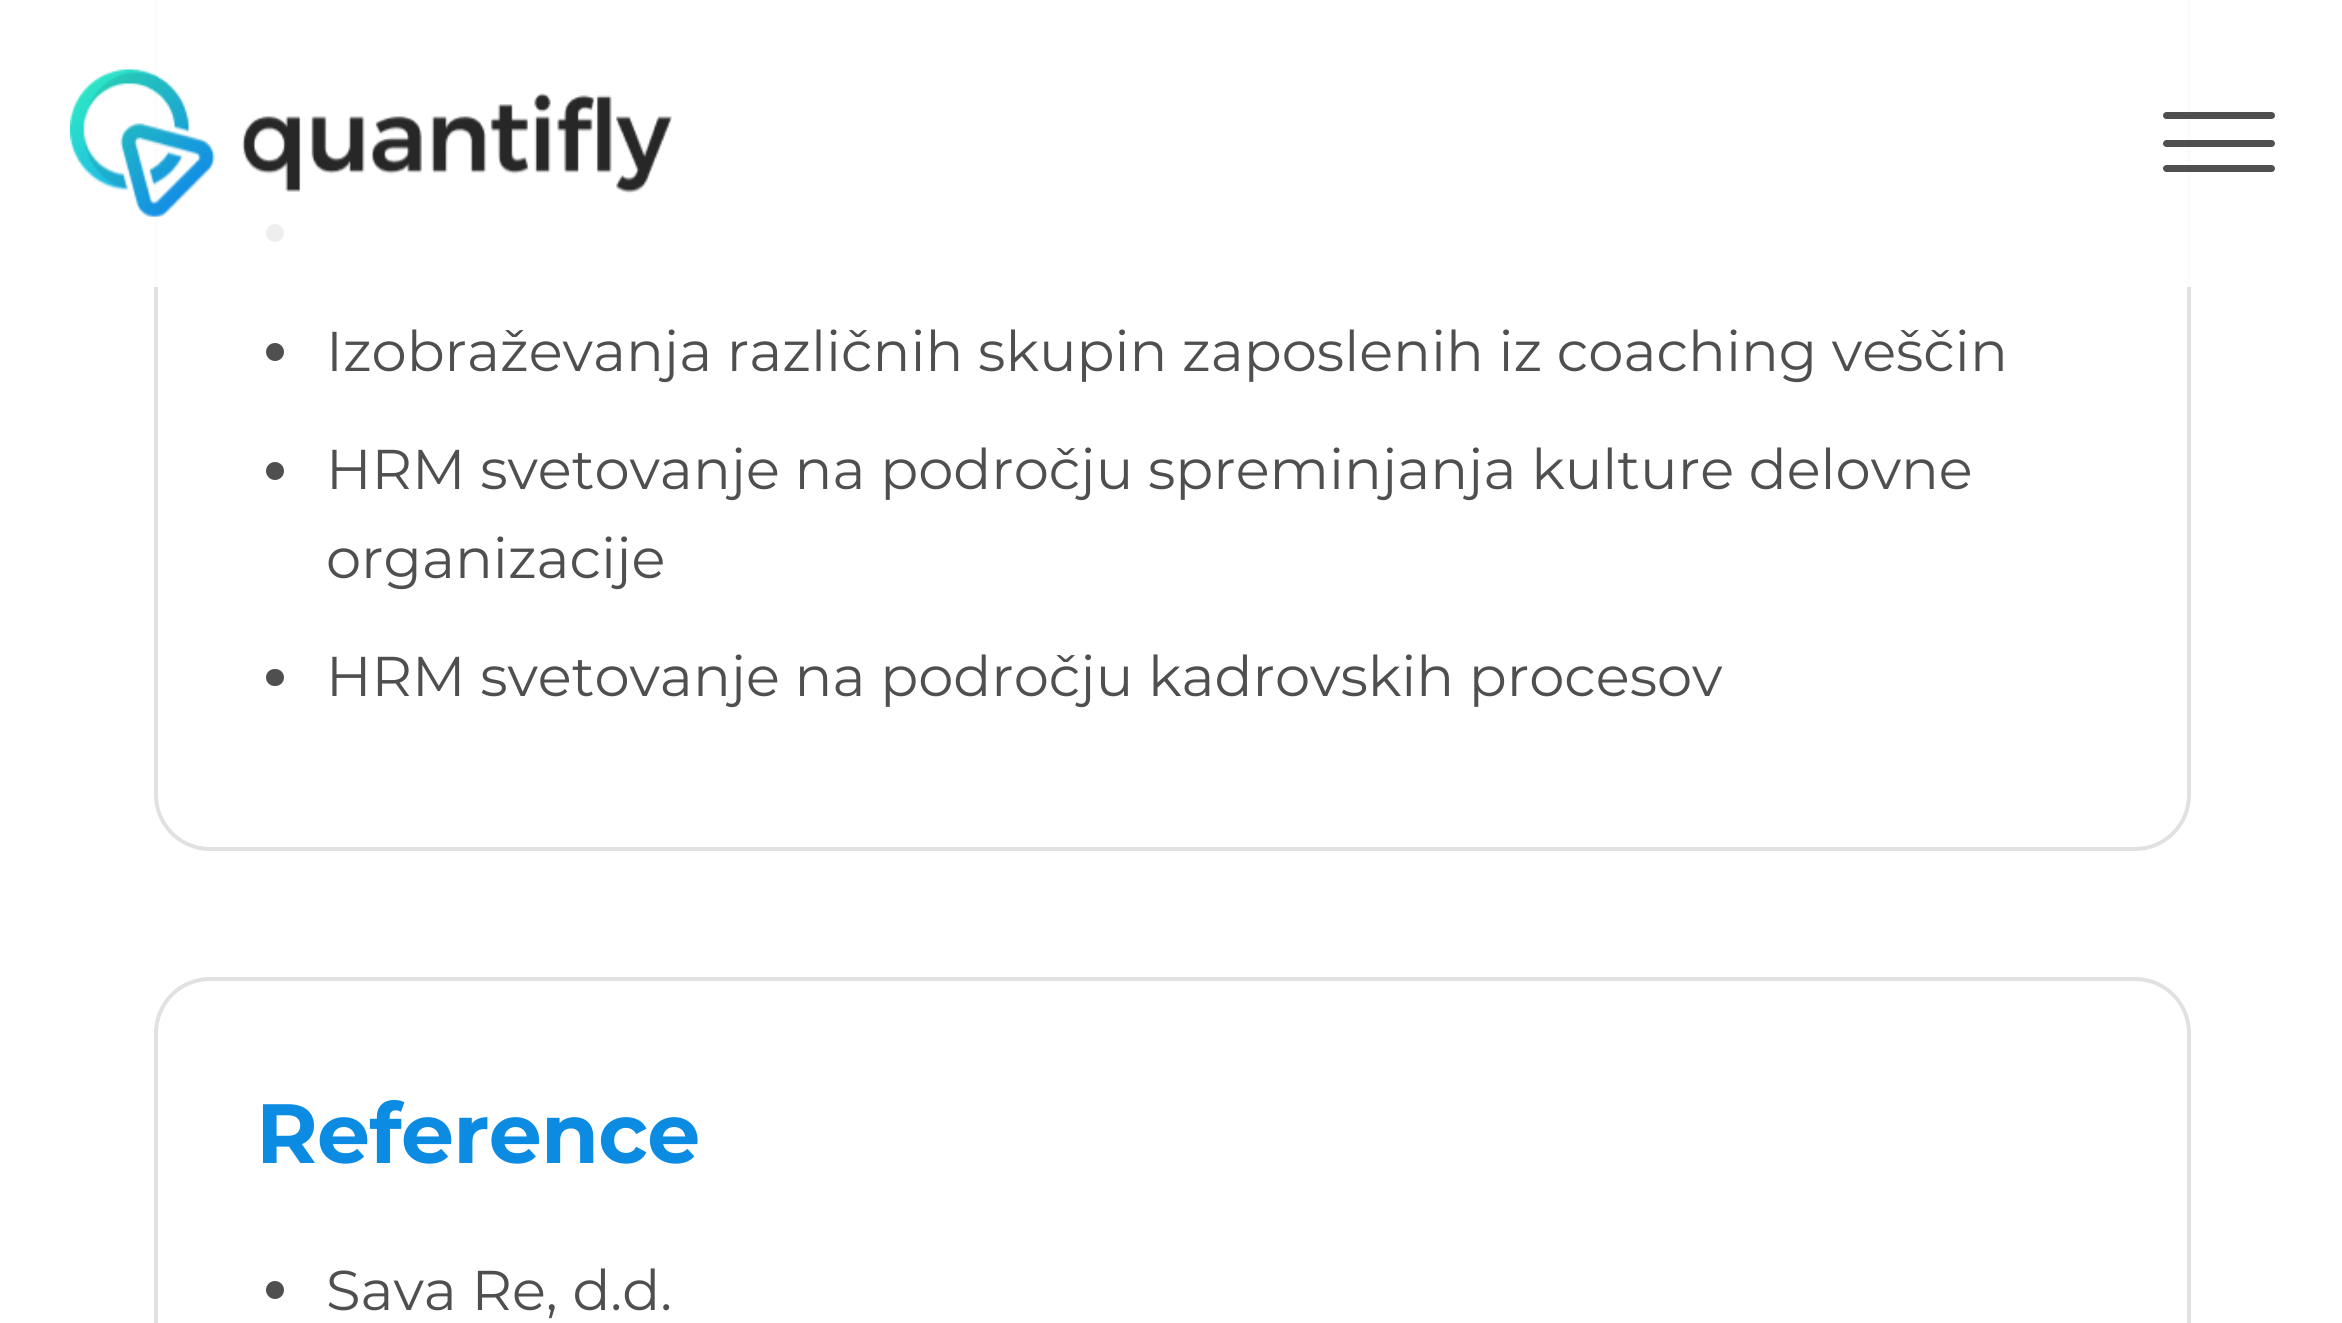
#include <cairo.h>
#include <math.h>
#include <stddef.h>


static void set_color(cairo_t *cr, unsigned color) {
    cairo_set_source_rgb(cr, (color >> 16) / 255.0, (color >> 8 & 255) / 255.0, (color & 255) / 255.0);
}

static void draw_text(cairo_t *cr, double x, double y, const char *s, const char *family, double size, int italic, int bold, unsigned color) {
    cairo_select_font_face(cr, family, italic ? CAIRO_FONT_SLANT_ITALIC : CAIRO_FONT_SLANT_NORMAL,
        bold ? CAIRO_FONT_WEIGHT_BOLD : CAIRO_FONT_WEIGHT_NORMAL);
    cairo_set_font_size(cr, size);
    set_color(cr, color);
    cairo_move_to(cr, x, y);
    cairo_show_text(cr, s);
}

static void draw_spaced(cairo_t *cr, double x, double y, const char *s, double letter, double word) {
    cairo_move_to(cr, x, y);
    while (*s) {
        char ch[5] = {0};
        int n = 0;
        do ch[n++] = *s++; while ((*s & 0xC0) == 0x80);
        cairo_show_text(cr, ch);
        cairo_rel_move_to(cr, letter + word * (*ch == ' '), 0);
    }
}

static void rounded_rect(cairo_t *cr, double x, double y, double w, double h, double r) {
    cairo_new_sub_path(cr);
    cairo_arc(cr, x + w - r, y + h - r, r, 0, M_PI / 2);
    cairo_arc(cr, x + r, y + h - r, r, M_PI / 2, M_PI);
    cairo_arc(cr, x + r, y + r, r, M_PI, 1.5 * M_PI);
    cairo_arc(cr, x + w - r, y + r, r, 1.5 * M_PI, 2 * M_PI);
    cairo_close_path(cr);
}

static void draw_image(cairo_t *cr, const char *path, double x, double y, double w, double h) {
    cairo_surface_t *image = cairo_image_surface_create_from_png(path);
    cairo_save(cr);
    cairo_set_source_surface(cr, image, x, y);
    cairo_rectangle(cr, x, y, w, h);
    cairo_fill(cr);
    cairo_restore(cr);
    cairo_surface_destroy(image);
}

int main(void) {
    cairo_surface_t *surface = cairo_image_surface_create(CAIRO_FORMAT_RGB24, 2342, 1323);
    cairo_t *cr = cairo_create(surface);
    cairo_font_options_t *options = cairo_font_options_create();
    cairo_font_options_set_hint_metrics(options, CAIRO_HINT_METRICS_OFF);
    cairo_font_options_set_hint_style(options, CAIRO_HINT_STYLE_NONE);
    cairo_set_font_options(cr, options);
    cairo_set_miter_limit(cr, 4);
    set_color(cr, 0xFFFFFF);
    cairo_paint(cr);
    rounded_rect(cr, 156, -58, 2033, 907, 54);
    set_color(cr, 0xE1E1E1);
    cairo_set_line_width(cr, 4);
    cairo_stroke(cr);
    set_color(cr, 0x4F4F4F);
    cairo_arc(cr, 275, 233, 9, 0, 2 * M_PI);
    cairo_fill(cr);
    cairo_set_source_rgba(cr, 1, 1, 1, 0.9);
    cairo_rectangle(cr, 154, 0, 2037, 287);
    cairo_fill(cr);
    draw_image(cr, "assets/img1.png", 70, 69, 602, 148);
    set_color(cr, 0x4F4F4F);
    rounded_rect(cr, 2163, 112, 112, 7, 3.5);
    cairo_fill(cr);
    rounded_rect(cr, 2163, 140, 112, 7, 3.5);
    cairo_fill(cr);
    rounded_rect(cr, 2163, 165, 112, 7, 3.5);
    cairo_fill(cr);
    cairo_arc(cr, 275, 352, 9, 0, 2 * M_PI);
    cairo_fill(cr);
    draw_text(cr, 326, 371, "Izobraževanja različnih skupin zaposlenih iz coaching veščin", "Montserrat", 56, 0, 0, 0x4F4F4F);
    cairo_new_path(cr);
    cairo_arc(cr, 275, 471, 9, 0, 2 * M_PI);
    cairo_fill(cr);
    draw_text(cr, 326, 489, "HRM svetovanje na področju spreminjanja kulture delovne", "Montserrat", 56, 0, 0, 0x4F4F4F);
    draw_text(cr, 326, 578, "organizacije", "Montserrat", 56, 0, 0, 0x4F4F4F);
    rounded_rect(cr, 266, 669, 18, 17, 8.5);
    cairo_fill(cr);
    draw_text(cr, 326, 696, "HRM svetovanje na področju kadrovskih procesov", "Montserrat", 56, 0, 0, 0x4F4F4F);
    rounded_rect(cr, 156, 979, 2033, 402, 54);
    set_color(cr, 0xE1E1E1);
    cairo_stroke(cr);
    cairo_select_font_face(cr, "Montserrat", CAIRO_FONT_SLANT_NORMAL, CAIRO_FONT_WEIGHT_BOLD);
    cairo_set_font_size(cr, 84);
    set_color(cr, 0x0C8BE2);
    draw_spaced(cr, 256, 1163, "Reference", -0.75, 0);
    set_color(cr, 0x4F4F4F);
    cairo_new_path(cr);
    cairo_arc(cr, 275, 1290, 9, 0, 2 * M_PI);
    cairo_fill(cr);
    draw_text(cr, 326, 1310, "Sava Re, d.d.", "Montserrat", 56, 0, 0, 0x4F4F4F);
    cairo_surface_write_to_png(surface, "output.png");
    cairo_font_options_destroy(options);
    cairo_destroy(cr);
    cairo_surface_destroy(surface);
    return 0;
}
